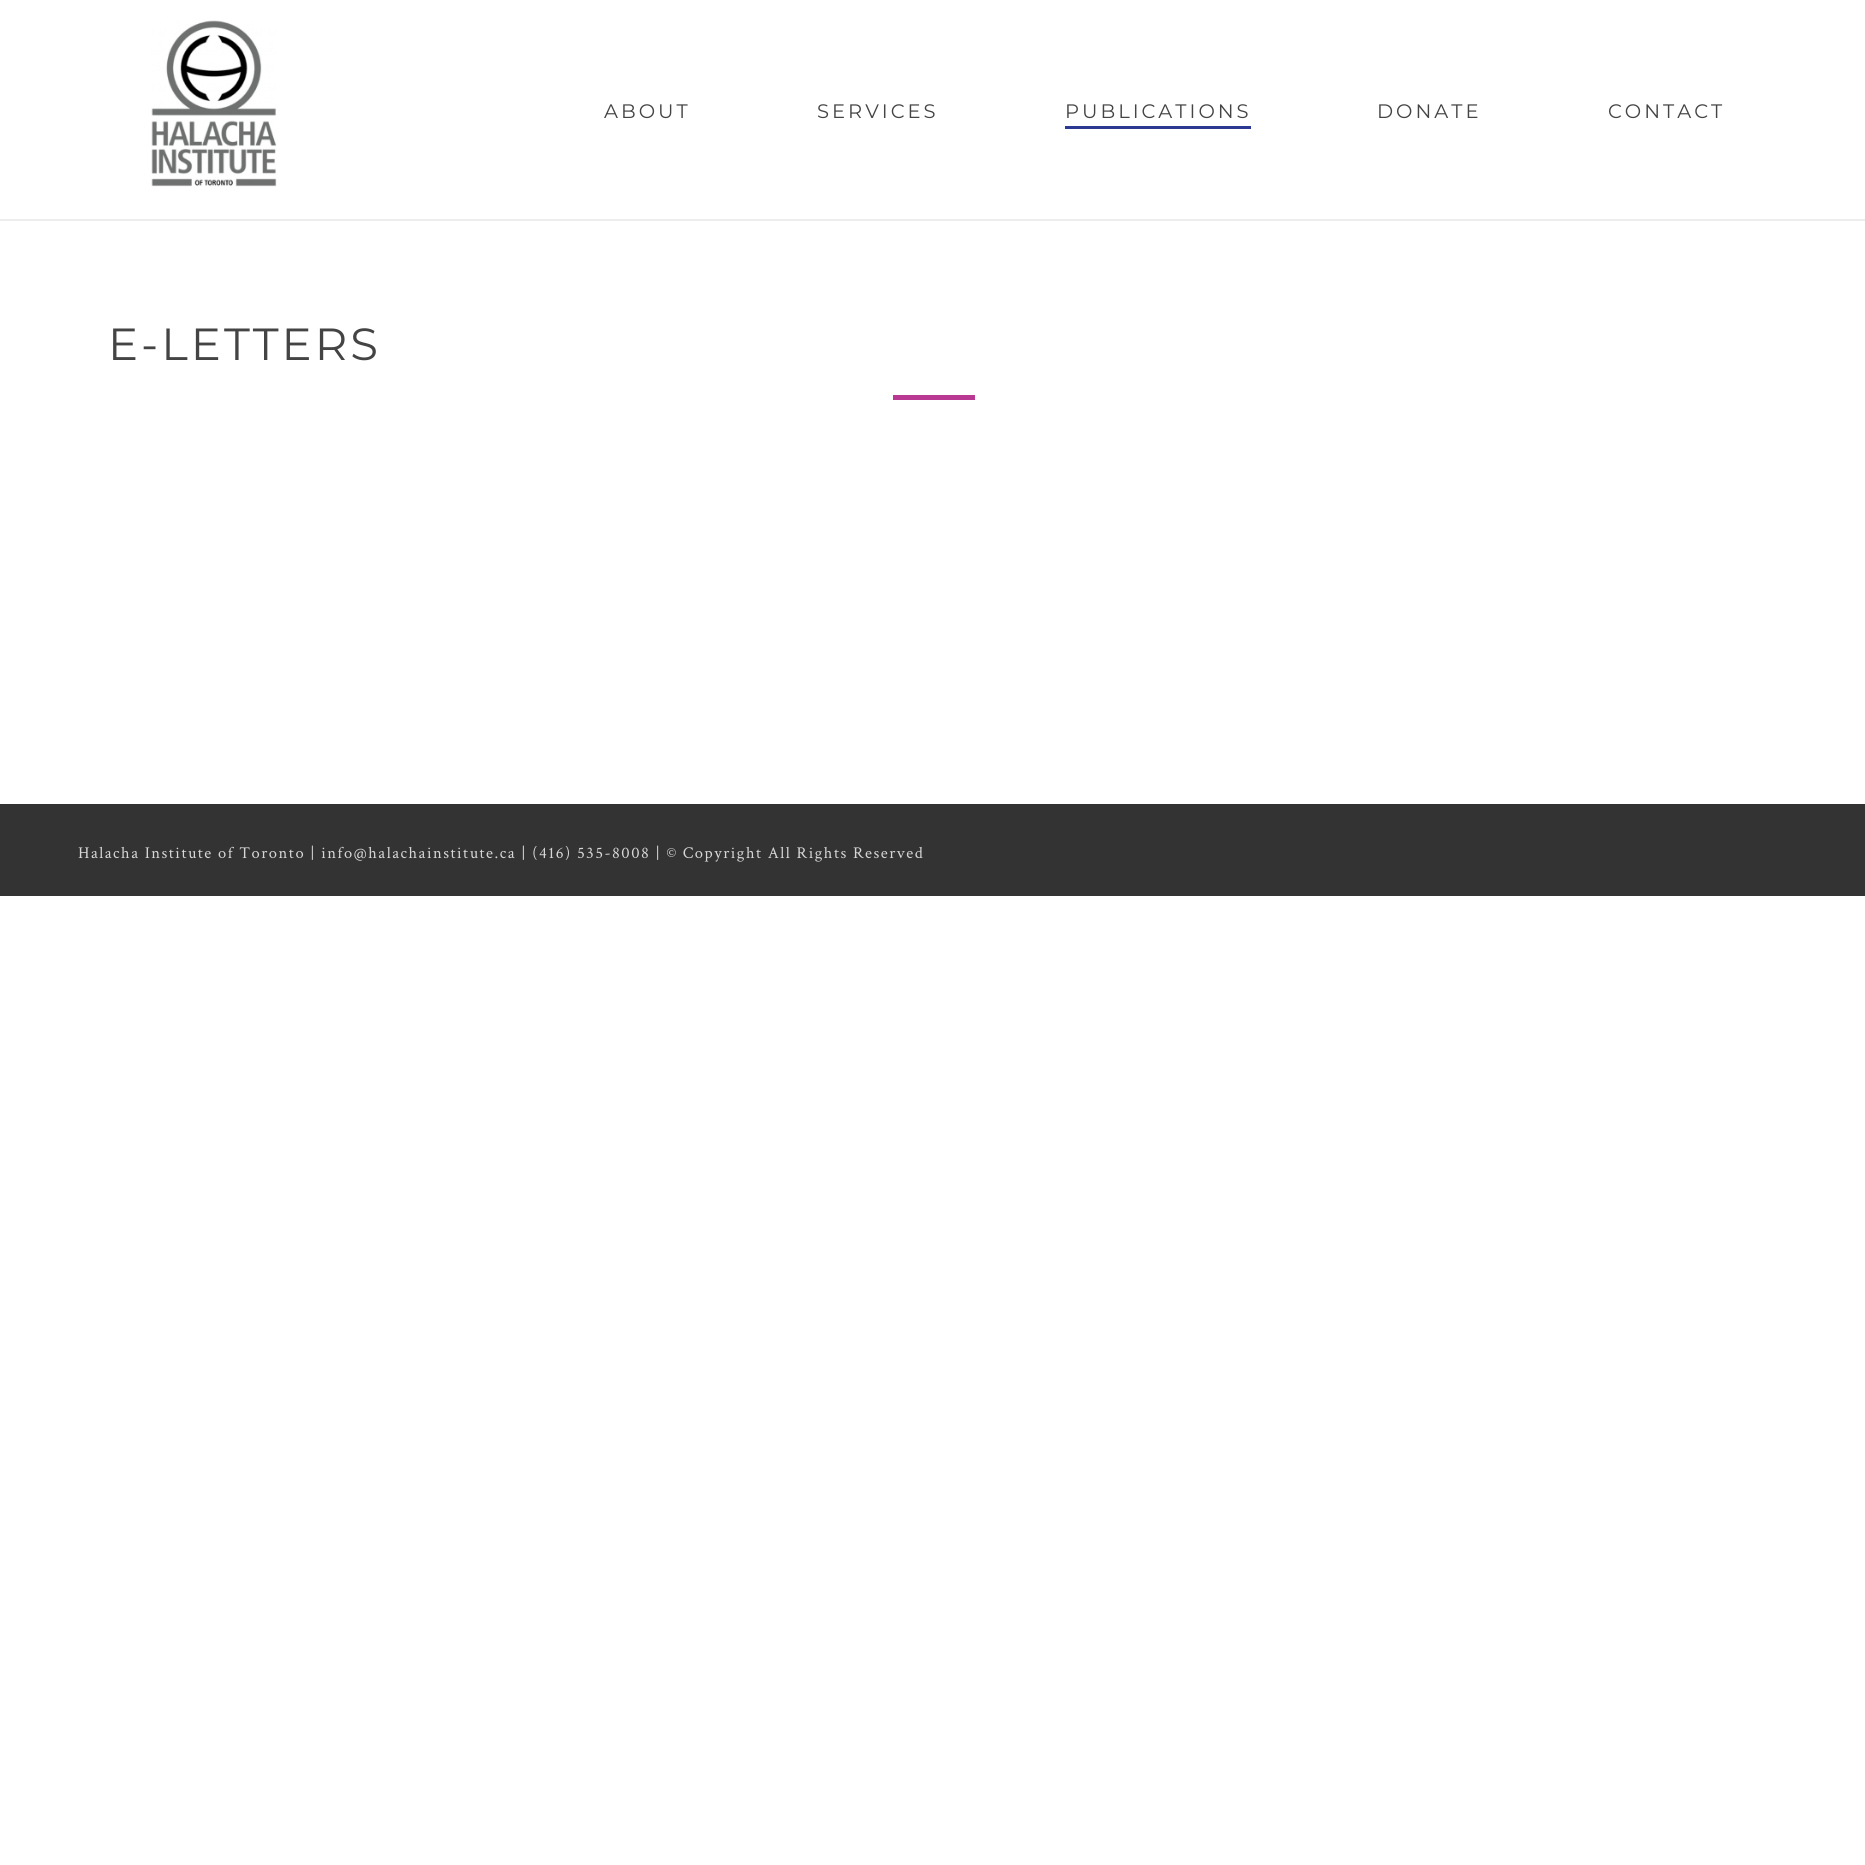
#include <cairo.h>
#include <math.h>
#include <stddef.h>


static void set_color(cairo_t *cr, unsigned color) {
    cairo_set_source_rgb(cr, (color >> 16) / 255.0, (color >> 8 & 255) / 255.0, (color & 255) / 255.0);
}

static void draw_spaced(cairo_t *cr, double x, double y, const char *s, double letter, double word) {
    cairo_move_to(cr, x, y);
    while (*s) {
        char ch[5] = {0};
        int n = 0;
        do ch[n++] = *s++; while ((*s & 0xC0) == 0x80);
        cairo_show_text(cr, ch);
        cairo_rel_move_to(cr, letter + word * (*ch == ' '), 0);
    }
}

static void fill_rect(cairo_t *cr, double x, double y, double w, double h, unsigned color) {
    set_color(cr, color);
    cairo_rectangle(cr, x, y, w, h);
    cairo_fill(cr);
}

static void draw_image(cairo_t *cr, const char *path, double x, double y, double w, double h) {
    cairo_surface_t *image = cairo_image_surface_create_from_png(path);
    cairo_save(cr);
    cairo_set_source_surface(cr, image, x, y);
    cairo_rectangle(cr, x, y, w, h);
    cairo_fill(cr);
    cairo_restore(cr);
    cairo_surface_destroy(image);
}

int main(void) {
    cairo_surface_t *surface = cairo_image_surface_create(CAIRO_FORMAT_RGB24, 1865, 1865);
    cairo_t *cr = cairo_create(surface);
    cairo_font_options_t *options = cairo_font_options_create();
    cairo_font_options_set_hint_metrics(options, CAIRO_HINT_METRICS_OFF);
    cairo_font_options_set_hint_style(options, CAIRO_HINT_STYLE_NONE);
    cairo_set_font_options(cr, options);
    cairo_set_miter_limit(cr, 4);
    set_color(cr, 0xFFFFFF);
    cairo_paint(cr);
    fill_rect(cr, 0, 219, 1865, 2, 0xEDEDED);
    draw_image(cr, "assets/img1.png", 151, 20, 126, 167);
    cairo_select_font_face(cr, "Montserrat", CAIRO_FONT_SLANT_NORMAL, CAIRO_FONT_WEIGHT_NORMAL);
    cairo_set_font_size(cr, 19.5);
    set_color(cr, 0x444444);
    draw_spaced(cr, 604, 118, "ABOUT", 3, 0);
    draw_spaced(cr, 817, 118, "SERVICES", 3, 0);
    draw_spaced(cr, 1065, 118, "PUBLICATIONS", 3, 0);
    fill_rect(cr, 1065, 126, 186, 3, 0x2B3992);
    set_color(cr, 0x444444);
    draw_spaced(cr, 1377, 118, "DONATE", 3, 0);
    draw_spaced(cr, 1608, 118, "CONTACT", 3, 0);
    cairo_set_font_size(cr, 45);
    draw_spaced(cr, 108, 360, "E-LETTERS", 3, 0);
    fill_rect(cr, 893, 395, 82, 5, 0xB93992);
    fill_rect(cr, 0, 804, 1865, 92, 0x333333);
    cairo_select_font_face(cr, "Crimson Text", CAIRO_FONT_SLANT_NORMAL, CAIRO_FONT_WEIGHT_NORMAL);
    cairo_set_font_size(cr, 16.5);
    set_color(cr, 0xD6D6D6);
    draw_spaced(cr, 78, 858, "Halacha Institute of Toronto | info@halachainstitute.ca | (416) 535-8008 | © Copyright All Rights Reserved", 1.5, 0);
    cairo_surface_write_to_png(surface, "output.png");
    cairo_font_options_destroy(options);
    cairo_destroy(cr);
    cairo_surface_destroy(surface);
    return 0;
}
